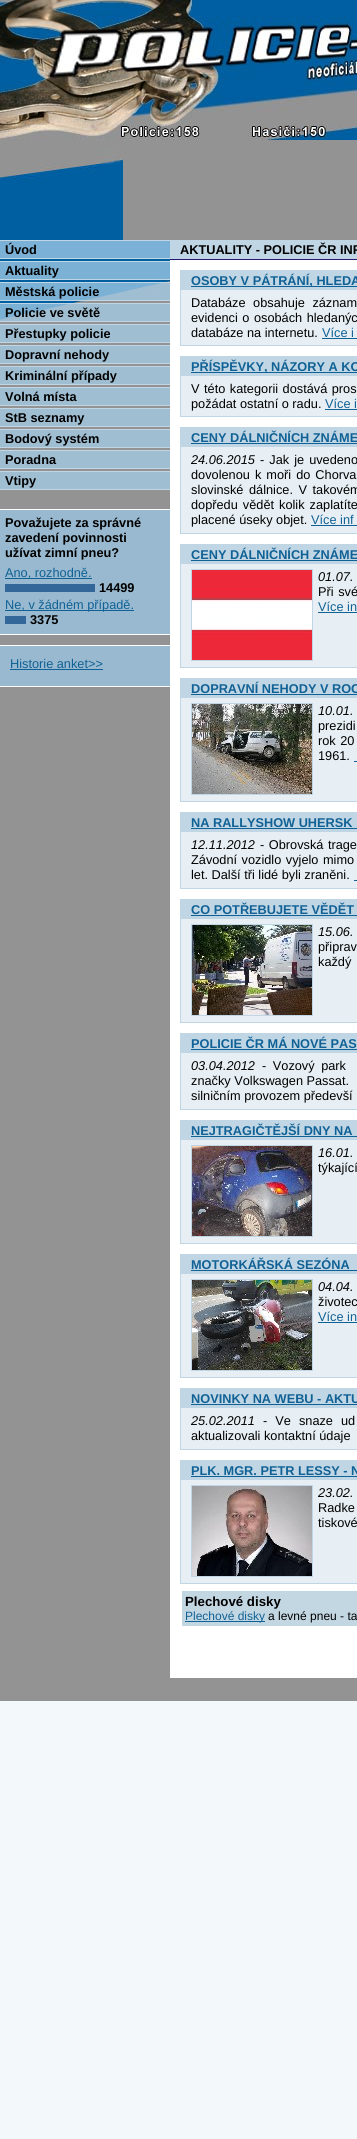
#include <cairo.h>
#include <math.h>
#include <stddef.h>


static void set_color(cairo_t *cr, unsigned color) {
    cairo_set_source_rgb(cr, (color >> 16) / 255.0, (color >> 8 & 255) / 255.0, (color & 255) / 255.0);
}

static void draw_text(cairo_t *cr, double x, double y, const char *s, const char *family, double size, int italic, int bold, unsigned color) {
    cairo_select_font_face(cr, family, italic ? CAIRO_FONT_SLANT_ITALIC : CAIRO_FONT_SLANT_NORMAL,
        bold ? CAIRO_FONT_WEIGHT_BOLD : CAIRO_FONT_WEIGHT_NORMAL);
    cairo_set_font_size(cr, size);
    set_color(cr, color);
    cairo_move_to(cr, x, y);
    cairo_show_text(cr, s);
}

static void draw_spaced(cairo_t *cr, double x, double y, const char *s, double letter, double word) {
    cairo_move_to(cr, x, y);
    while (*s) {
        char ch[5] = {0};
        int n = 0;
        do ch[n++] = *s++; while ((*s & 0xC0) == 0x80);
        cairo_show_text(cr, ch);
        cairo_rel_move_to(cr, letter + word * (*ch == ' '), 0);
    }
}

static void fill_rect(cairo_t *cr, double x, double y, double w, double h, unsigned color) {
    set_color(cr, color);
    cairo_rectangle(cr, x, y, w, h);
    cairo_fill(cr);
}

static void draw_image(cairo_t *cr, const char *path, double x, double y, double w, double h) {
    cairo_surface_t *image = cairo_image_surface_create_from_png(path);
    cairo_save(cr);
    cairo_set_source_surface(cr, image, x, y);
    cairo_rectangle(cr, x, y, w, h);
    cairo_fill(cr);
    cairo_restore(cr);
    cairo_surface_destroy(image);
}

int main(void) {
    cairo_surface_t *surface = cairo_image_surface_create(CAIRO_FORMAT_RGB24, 357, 2139);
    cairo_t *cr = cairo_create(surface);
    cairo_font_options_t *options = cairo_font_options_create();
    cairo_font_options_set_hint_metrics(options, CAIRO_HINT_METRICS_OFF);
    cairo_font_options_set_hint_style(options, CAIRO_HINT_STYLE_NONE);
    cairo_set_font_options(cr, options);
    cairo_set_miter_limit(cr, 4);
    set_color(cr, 0xF3F8FB);
    cairo_paint(cr);
    draw_image(cr, "assets/img1.png", 0, 0, 357, 125);
    draw_image(cr, "assets/img2.png", 0, 125, 357, 15);
    fill_rect(cr, 0, 140, 357, 1561, 0x939393);
    draw_image(cr, "assets/img3.png", 0, 148, 170, 173);
    fill_rect(cr, 123, 148, 47, 92, 0x939393);
    fill_rect(cr, 0, 241, 170, 17, 0x7BB1D6);
    fill_rect(cr, 0, 240, 170, 1, 0xC1D6E4);
    fill_rect(cr, 0, 258, 170, 1, 0xC1D6E4);
    draw_text(cr, 5, 254, "Úvod", "Liberation Sans", 12.75, 0, 1, 0x000000);
    cairo_set_source_rgba(cr, 0.643, 0.8, 0.906, 0.75);
    cairo_rectangle(cr, 0, 262, 170, 17);
    cairo_fill(cr);
    fill_rect(cr, 0, 261, 170, 1, 0xC1D6E4);
    fill_rect(cr, 0, 279, 170, 1, 0xC1D6E4);
    draw_text(cr, 5, 275, "Aktuality", "Liberation Sans", 12.75, 0, 1, 0x000000);
    cairo_set_source_rgba(cr, 0.643, 0.8, 0.906, 0.75);
    cairo_rectangle(cr, 0, 283, 170, 17);
    cairo_fill(cr);
    fill_rect(cr, 0, 282, 170, 1, 0xC1D6E4);
    fill_rect(cr, 0, 300, 170, 1, 0xC1D6E4);
    draw_text(cr, 5, 296, "Městská policie", "Liberation Sans", 12.75, 0, 1, 0x000000);
    cairo_set_source_rgba(cr, 0.643, 0.8, 0.906, 0.75);
    cairo_rectangle(cr, 0, 304, 170, 17);
    cairo_fill(cr);
    fill_rect(cr, 0, 303, 170, 1, 0xC1D6E4);
    fill_rect(cr, 0, 321, 170, 1, 0xC1D6E4);
    draw_text(cr, 5, 317, "Policie ve světě", "Liberation Sans", 12.75, 0, 1, 0x000000);
    fill_rect(cr, 0, 325, 170, 17, 0xA0BED2);
    fill_rect(cr, 0, 324, 170, 1, 0xC1D6E4);
    fill_rect(cr, 0, 342, 170, 1, 0xC1D6E4);
    draw_text(cr, 5, 338, "Přestupky policie", "Liberation Sans", 12.75, 0, 1, 0x000000);
    fill_rect(cr, 0, 346, 170, 17, 0xA0BED2);
    fill_rect(cr, 0, 345, 170, 1, 0xC1D6E4);
    fill_rect(cr, 0, 363, 170, 1, 0xC1D6E4);
    draw_text(cr, 5, 359, "Dopravní nehody", "Liberation Sans", 12.75, 0, 1, 0x000000);
    fill_rect(cr, 0, 367, 170, 17, 0xA0BED2);
    fill_rect(cr, 0, 366, 170, 1, 0xC1D6E4);
    fill_rect(cr, 0, 384, 170, 1, 0xC1D6E4);
    draw_text(cr, 5, 380, "Kriminální případy", "Liberation Sans", 12.75, 0, 1, 0x000000);
    fill_rect(cr, 0, 388, 170, 17, 0xA0BED2);
    fill_rect(cr, 0, 387, 170, 1, 0xC1D6E4);
    fill_rect(cr, 0, 405, 170, 1, 0xC1D6E4);
    draw_text(cr, 5, 401, "Volná místa", "Liberation Sans", 12.75, 0, 1, 0x000000);
    fill_rect(cr, 0, 409, 170, 17, 0xA0BED2);
    fill_rect(cr, 0, 408, 170, 1, 0xC1D6E4);
    fill_rect(cr, 0, 426, 170, 1, 0xC1D6E4);
    draw_text(cr, 5, 422, "StB seznamy", "Liberation Sans", 12.75, 0, 1, 0x000000);
    fill_rect(cr, 0, 430, 170, 17, 0xA0BED2);
    fill_rect(cr, 0, 429, 170, 1, 0xC1D6E4);
    fill_rect(cr, 0, 447, 170, 1, 0xC1D6E4);
    draw_text(cr, 5, 443, "Bodový systém", "Liberation Sans", 12.75, 0, 1, 0x000000);
    fill_rect(cr, 0, 451, 170, 17, 0xA0BED2);
    fill_rect(cr, 0, 450, 170, 1, 0xC1D6E4);
    fill_rect(cr, 0, 468, 170, 1, 0xC1D6E4);
    draw_text(cr, 5, 464, "Poradna", "Liberation Sans", 12.75, 0, 1, 0x000000);
    fill_rect(cr, 0, 472, 170, 17, 0xA0BED2);
    fill_rect(cr, 0, 471, 170, 1, 0xC1D6E4);
    fill_rect(cr, 0, 489, 170, 1, 0xC1D6E4);
    draw_text(cr, 5, 485, "Vtipy", "Liberation Sans", 12.75, 0, 1, 0x000000);
    fill_rect(cr, 0, 510, 170, 124, 0x98B9CF);
    fill_rect(cr, 0, 509, 170, 1, 0xFFFFFF);
    fill_rect(cr, 0, 634, 170, 1, 0xFFFFFF);
    draw_text(cr, 5, 527, "Považujete za správné", "Liberation Sans", 12.75, 0, 1, 0x000000);
    draw_text(cr, 5, 542, "zavedení povinnosti", "Liberation Sans", 12.75, 0, 1, 0x000000);
    draw_text(cr, 5, 557, "užívat zimní pneu?", "Liberation Sans", 12.75, 0, 1, 0x000000);
    fill_rect(cr, 5, 578, 87, 1, 0x106195);
    draw_text(cr, 5, 577, "Ano, rozhodně.", "Liberation Sans", 12.75, 0, 0, 0x106195);
    fill_rect(cr, 5, 584, 90, 8, 0x336699);
    draw_text(cr, 99, 592, "14499", "Liberation Sans", 12.75, 0, 1, 0x000000);
    fill_rect(cr, 5, 610, 129, 1, 0x106195);
    draw_text(cr, 5, 609, "Ne, v žádném případě.", "Liberation Sans", 12.75, 0, 0, 0x106195);
    fill_rect(cr, 5, 616, 21, 8, 0x336699);
    draw_text(cr, 30, 624, "3375", "Liberation Sans", 12.75, 0, 1, 0x000000);
    fill_rect(cr, 0, 646, 170, 40, 0x98B9CF);
    fill_rect(cr, 0, 645, 170, 1, 0xFFFFFF);
    fill_rect(cr, 0, 686, 170, 1, 0xFFFFFF);
    draw_text(cr, 10, 668, "Historie anket>>", "Liberation Sans", 12.75, 0, 0, 0x106195);
    fill_rect(cr, 10, 669, 93, 1, 0x106195);
    fill_rect(cr, 170, 260, 187, 1418, 0xFFFFFF);
    fill_rect(cr, 170, 240, 187, 19, 0xC1D6E4);
    fill_rect(cr, 170, 259, 187, 1, 0x281773);
    draw_text(cr, 180, 254, "AKTUALITY - POLICIE ČR INF", "Liberation Sans", 12.75, 0, 1, 0x000000);
    fill_rect(cr, 181, 290, 176, 55, 0xE7EFF4);
    cairo_rectangle(cr, 180.5, 270.5, 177, 75);
    set_color(cr, 0xC1D6E4);
    cairo_set_line_width(cr, 1);
    cairo_stroke(cr);
    fill_rect(cr, 181, 271, 176, 19, 0xC1D6E4);
    fill_rect(cr, 191, 286, 166, 1, 0x106195);
    draw_text(cr, 191, 285, "OSOBY V PÁTRÁNÍ, HLEDA", "Liberation Sans", 12.75, 0, 1, 0x106195);
    cairo_select_font_face(cr, "Liberation Sans", CAIRO_FONT_SLANT_NORMAL, CAIRO_FONT_WEIGHT_NORMAL);
    set_color(cr, 0x000000);
    draw_spaced(cr, 191, 307, "Databáze obsahuje záznam", 0, 4);
    draw_spaced(cr, 191, 322, "evidenci o osobách hledanýc", 0, 1);
    draw_text(cr, 191, 337, "databáze na internetu.", "Liberation Sans", 12.75, 0, 0, 0x000000);
    draw_text(cr, 322, 337, "Více i", "Liberation Sans", 12.75, 0, 0, 0x106195);
    fill_rect(cr, 322, 338, 35, 1, 0x106195);
    fill_rect(cr, 181, 376, 176, 40, 0xE7EFF4);
    cairo_rectangle(cr, 180.5, 356.5, 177, 60);
    set_color(cr, 0xC1D6E4);
    cairo_stroke(cr);
    fill_rect(cr, 181, 357, 176, 19, 0xC1D6E4);
    fill_rect(cr, 191, 372, 166, 1, 0x106195);
    draw_text(cr, 191, 371, "PŘÍSPĚVKY, NÁZORY A KO", "Liberation Sans", 12.75, 0, 1, 0x106195);
    cairo_select_font_face(cr, "Liberation Sans", CAIRO_FONT_SLANT_NORMAL, CAIRO_FONT_WEIGHT_NORMAL);
    set_color(cr, 0x000000);
    draw_spaced(cr, 191, 393, "V této kategorii dostává pros", 0, 1);
    draw_text(cr, 191, 408, "požádat ostatní o radu.", "Liberation Sans", 12.75, 0, 0, 0x000000);
    draw_text(cr, 325, 408, "Více i", "Liberation Sans", 12.75, 0, 0, 0x106195);
    fill_rect(cr, 325, 409, 32, 1, 0x106195);
    fill_rect(cr, 181, 447, 176, 86, 0xE7EFF4);
    cairo_rectangle(cr, 180.5, 427.5, 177, 106);
    set_color(cr, 0xC1D6E4);
    cairo_stroke(cr);
    fill_rect(cr, 181, 428, 176, 19, 0xC1D6E4);
    draw_text(cr, 191, 442, "CENY DÁLNIČNÍCH ZNÁME", "Liberation Sans", 12.75, 0, 1, 0x106195);
    fill_rect(cr, 191, 443, 166, 1, 0x106195);
    draw_text(cr, 191, 464, "24.06.2015", "Liberation Sans", 12.75, 1, 0, 0x000000);
    cairo_select_font_face(cr, "Liberation Sans", CAIRO_FONT_SLANT_NORMAL, CAIRO_FONT_WEIGHT_NORMAL);
    draw_spaced(cr, 260, 464, "- Jak je uvedeno", 0, 1.5);
    draw_spaced(cr, 191, 479, "dovolenou k moři do Chorva", 0, 1.5);
    draw_spaced(cr, 191, 494, "slovinské dálnice. V takovém", 0, 2);
    draw_spaced(cr, 191, 509, "dopředu vědět kolik zaplatíte", 0, 1.5);
    draw_text(cr, 191, 524, "placené úseky objet.", "Liberation Sans", 12.75, 0, 0, 0x000000);
    draw_text(cr, 311, 524, "Více inf", "Liberation Sans", 12.75, 0, 0, 0x106195);
    fill_rect(cr, 311, 525, 46, 1, 0x106195);
    fill_rect(cr, 181, 564, 176, 103, 0xE7EFF4);
    cairo_rectangle(cr, 180.5, 544.5, 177, 123);
    set_color(cr, 0xC1D6E4);
    cairo_stroke(cr);
    fill_rect(cr, 181, 545, 176, 19, 0xC1D6E4);
    draw_text(cr, 191, 559, "CENY DÁLNIČNÍCH ZNÁME", "Liberation Sans", 12.75, 0, 1, 0x106195);
    fill_rect(cr, 191, 560, 166, 1, 0x106195);
    cairo_rectangle(cr, 191.5, 569.5, 121, 91);
    set_color(cr, 0xC1D6E4);
    cairo_stroke(cr);
    draw_image(cr, "assets/img4.png", 192, 570, 120, 90);
    draw_text(cr, 318, 581, "01.07.", "Liberation Sans", 12.75, 1, 0, 0x000000);
    cairo_select_font_face(cr, "Liberation Sans", CAIRO_FONT_SLANT_NORMAL, CAIRO_FONT_WEIGHT_NORMAL);
    draw_spaced(cr, 318, 596, "Při své", 0, 1);
    draw_text(cr, 318, 611, "Více in", "Liberation Sans", 12.75, 0, 0, 0x106195);
    fill_rect(cr, 318, 612, 39, 1, 0x106195);
    fill_rect(cr, 181, 698, 176, 103, 0xE7EFF4);
    cairo_rectangle(cr, 180.5, 678.5, 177, 123);
    set_color(cr, 0xC1D6E4);
    cairo_stroke(cr);
    fill_rect(cr, 181, 679, 176, 19, 0xC1D6E4);
    draw_text(cr, 191, 693, "DOPRAVNÍ NEHODY V ROC", "Liberation Sans", 12.75, 0, 1, 0x106195);
    fill_rect(cr, 191, 694, 166, 1, 0x106195);
    cairo_rectangle(cr, 191.5, 703.5, 121, 91);
    set_color(cr, 0xC1D6E4);
    cairo_stroke(cr);
    draw_image(cr, "assets/img5.png", 192, 704, 120, 90);
    draw_text(cr, 318, 715, "10.01.", "Liberation Sans", 12.75, 1, 0, 0x000000);
    draw_text(cr, 318, 730, "prezidi", "Liberation Sans", 12.75, 0, 0, 0x000000);
    draw_spaced(cr, 318, 745, "rok 20", 0, 1);
    draw_text(cr, 318, 760, "1961.", "Liberation Sans", 12.75, 0, 0, 0x000000);
    fill_rect(cr, 354, 761, 3, 1, 0x106195);
    fill_rect(cr, 181, 832, 176, 56, 0xE7EFF4);
    cairo_rectangle(cr, 180.5, 812.5, 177, 76);
    set_color(cr, 0xC1D6E4);
    cairo_stroke(cr);
    fill_rect(cr, 181, 813, 176, 19, 0xC1D6E4);
    draw_text(cr, 191, 827, "NA RALLYSHOW UHERSK", "Liberation Sans", 12.75, 0, 1, 0x106195);
    fill_rect(cr, 191, 828, 166, 1, 0x106195);
    draw_text(cr, 191, 849, "12.11.2012", "Liberation Sans", 12.75, 1, 0, 0x000000);
    cairo_select_font_face(cr, "Liberation Sans", CAIRO_FONT_SLANT_NORMAL, CAIRO_FONT_WEIGHT_NORMAL);
    draw_spaced(cr, 260, 849, "- Obrovská trage", 0, 1);
    draw_spaced(cr, 191, 864, "Závodní vozidlo vyjelo mimo", 0, 1);
    draw_text(cr, 191, 879, "let. Další tři lidé byli zraněni.", "Liberation Sans", 12.75, 0, 0, 0x000000);
    fill_rect(cr, 354, 880, 3, 1, 0x106195);
    fill_rect(cr, 181, 919, 176, 103, 0xE7EFF4);
    cairo_rectangle(cr, 180.5, 899.5, 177, 123);
    set_color(cr, 0xC1D6E4);
    cairo_stroke(cr);
    fill_rect(cr, 181, 900, 176, 19, 0xC1D6E4);
    draw_text(cr, 191, 914, "CO POTŘEBUJETE VĚDĚT", "Liberation Sans", 12.75, 0, 1, 0x106195);
    fill_rect(cr, 191, 915, 166, 1, 0x106195);
    cairo_rectangle(cr, 191.5, 924.5, 121, 91);
    set_color(cr, 0xC1D6E4);
    cairo_stroke(cr);
    draw_image(cr, "assets/img6.png", 192, 925, 120, 90);
    draw_text(cr, 318, 936, "15.06.", "Liberation Sans", 12.75, 1, 0, 0x000000);
    cairo_select_font_face(cr, "Liberation Sans", CAIRO_FONT_SLANT_NORMAL, CAIRO_FONT_WEIGHT_NORMAL);
    draw_spaced(cr, 318, 951, "připrav", 0, 2);
    draw_text(cr, 318, 966, "každý", "Liberation Sans", 12.75, 0, 0, 0x000000);
    fill_rect(cr, 181, 1053, 176, 56, 0xE7EFF4);
    cairo_rectangle(cr, 180.5, 1033.5, 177, 76);
    set_color(cr, 0xC1D6E4);
    cairo_stroke(cr);
    fill_rect(cr, 181, 1034, 176, 19, 0xC1D6E4);
    draw_text(cr, 191, 1048, "POLICIE ČR MÁ NOVÉ PAS", "Liberation Sans", 12.75, 0, 1, 0x106195);
    fill_rect(cr, 191, 1049, 166, 1, 0x106195);
    draw_text(cr, 191, 1070, "03.04.2012", "Liberation Sans", 12.75, 1, 0, 0x000000);
    cairo_select_font_face(cr, "Liberation Sans", CAIRO_FONT_SLANT_NORMAL, CAIRO_FONT_WEIGHT_NORMAL);
    draw_spaced(cr, 262, 1070, "- Vozový park", 0, 3);
    draw_text(cr, 191, 1085, "značky Volkswagen Passat.", "Liberation Sans", 12.75, 0, 0, 0x000000);
    draw_text(cr, 191, 1100, "silničním provozem předevší", "Liberation Sans", 12.75, 0, 0, 0x000000);
    fill_rect(cr, 181, 1140, 176, 103, 0xE7EFF4);
    cairo_rectangle(cr, 180.5, 1120.5, 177, 123);
    set_color(cr, 0xC1D6E4);
    cairo_stroke(cr);
    fill_rect(cr, 181, 1121, 176, 19, 0xC1D6E4);
    draw_text(cr, 191, 1135, "NEJTRAGIČTĚJŠÍ DNY NA", "Liberation Sans", 12.75, 0, 1, 0x106195);
    fill_rect(cr, 191, 1136, 166, 1, 0x106195);
    cairo_rectangle(cr, 191.5, 1145.5, 121, 91);
    set_color(cr, 0xC1D6E4);
    cairo_stroke(cr);
    draw_image(cr, "assets/img7.png", 192, 1146, 120, 90);
    draw_text(cr, 318, 1157, "16.01.", "Liberation Sans", 12.75, 1, 0, 0x000000);
    draw_text(cr, 318, 1172, "týkající", "Liberation Sans", 12.75, 0, 0, 0x000000);
    fill_rect(cr, 181, 1274, 176, 103, 0xE7EFF4);
    cairo_rectangle(cr, 180.5, 1254.5, 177, 123);
    set_color(cr, 0xC1D6E4);
    cairo_stroke(cr);
    fill_rect(cr, 181, 1255, 176, 19, 0xC1D6E4);
    draw_text(cr, 191, 1269, "MOTORKÁŘSKÁ SEZÓNA", "Liberation Sans", 12.75, 0, 1, 0x106195);
    fill_rect(cr, 191, 1270, 166, 1, 0x106195);
    cairo_rectangle(cr, 191.5, 1279.5, 121, 91);
    set_color(cr, 0xC1D6E4);
    cairo_stroke(cr);
    draw_image(cr, "assets/img8.png", 192, 1280, 120, 90);
    draw_text(cr, 318, 1291, "04.04.", "Liberation Sans", 12.75, 1, 0, 0x000000);
    cairo_select_font_face(cr, "Liberation Sans", CAIRO_FONT_SLANT_NORMAL, CAIRO_FONT_WEIGHT_NORMAL);
    draw_spaced(cr, 318, 1306, "životec", 0, 3);
    draw_text(cr, 318, 1321, "Více in", "Liberation Sans", 12.75, 0, 0, 0x106195);
    fill_rect(cr, 318, 1322, 39, 1, 0x106195);
    fill_rect(cr, 181, 1408, 176, 41, 0xE7EFF4);
    cairo_rectangle(cr, 180.5, 1388.5, 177, 61);
    set_color(cr, 0xC1D6E4);
    cairo_stroke(cr);
    fill_rect(cr, 181, 1389, 176, 19, 0xC1D6E4);
    draw_text(cr, 191, 1403, "NOVINKY NA WEBU - AKTU", "Liberation Sans", 12.75, 0, 1, 0x106195);
    fill_rect(cr, 191, 1404, 166, 1, 0x106195);
    draw_text(cr, 191, 1425, "25.02.2011", "Liberation Sans", 12.75, 1, 0, 0x000000);
    cairo_select_font_face(cr, "Liberation Sans", CAIRO_FONT_SLANT_NORMAL, CAIRO_FONT_WEIGHT_NORMAL);
    draw_spaced(cr, 263, 1425, "- Ve snaze ud", 0, 4.5);
    draw_text(cr, 191, 1440, "aktualizovali kontaktní údaje", "Liberation Sans", 12.75, 0, 0, 0x000000);
    fill_rect(cr, 181, 1480, 176, 103, 0xE7EFF4);
    cairo_rectangle(cr, 180.5, 1460.5, 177, 123);
    set_color(cr, 0xC1D6E4);
    cairo_stroke(cr);
    fill_rect(cr, 181, 1461, 176, 19, 0xC1D6E4);
    draw_text(cr, 191, 1475, "PLK. MGR. PETR LESSY - N", "Liberation Sans", 12.75, 0, 1, 0x106195);
    fill_rect(cr, 191, 1476, 166, 1, 0x106195);
    cairo_rectangle(cr, 191.5, 1485.5, 121, 91);
    set_color(cr, 0xC1D6E4);
    cairo_stroke(cr);
    draw_image(cr, "assets/img9.png", 192, 1486, 120, 90);
    draw_text(cr, 318, 1497, "23.02.", "Liberation Sans", 12.75, 1, 0, 0x000000);
    cairo_select_font_face(cr, "Liberation Sans", CAIRO_FONT_SLANT_NORMAL, CAIRO_FONT_WEIGHT_NORMAL);
    draw_spaced(cr, 318, 1512, "Radke", 0, 1.5);
    draw_text(cr, 318, 1527, "tiskové", "Liberation Sans", 12.75, 0, 0, 0x000000);
    fill_rect(cr, 182, 1591, 175, 35, 0xC3D7E3);
    draw_text(cr, 185, 1606, "Plechové disky", "Liberation Sans", 13.25, 0, 1, 0x000000);
    fill_rect(cr, 185, 1621, 80, 1, 0x106195);
    draw_text(cr, 185, 1620, "Plechové disky", "Liberation Sans", 12, 0, 0, 0x106195);
    draw_text(cr, 268, 1620, "a levné pneu - ta", "Liberation Sans", 12, 0, 0, 0x000000);
    cairo_surface_write_to_png(surface, "output.png");
    cairo_font_options_destroy(options);
    cairo_destroy(cr);
    cairo_surface_destroy(surface);
    return 0;
}
